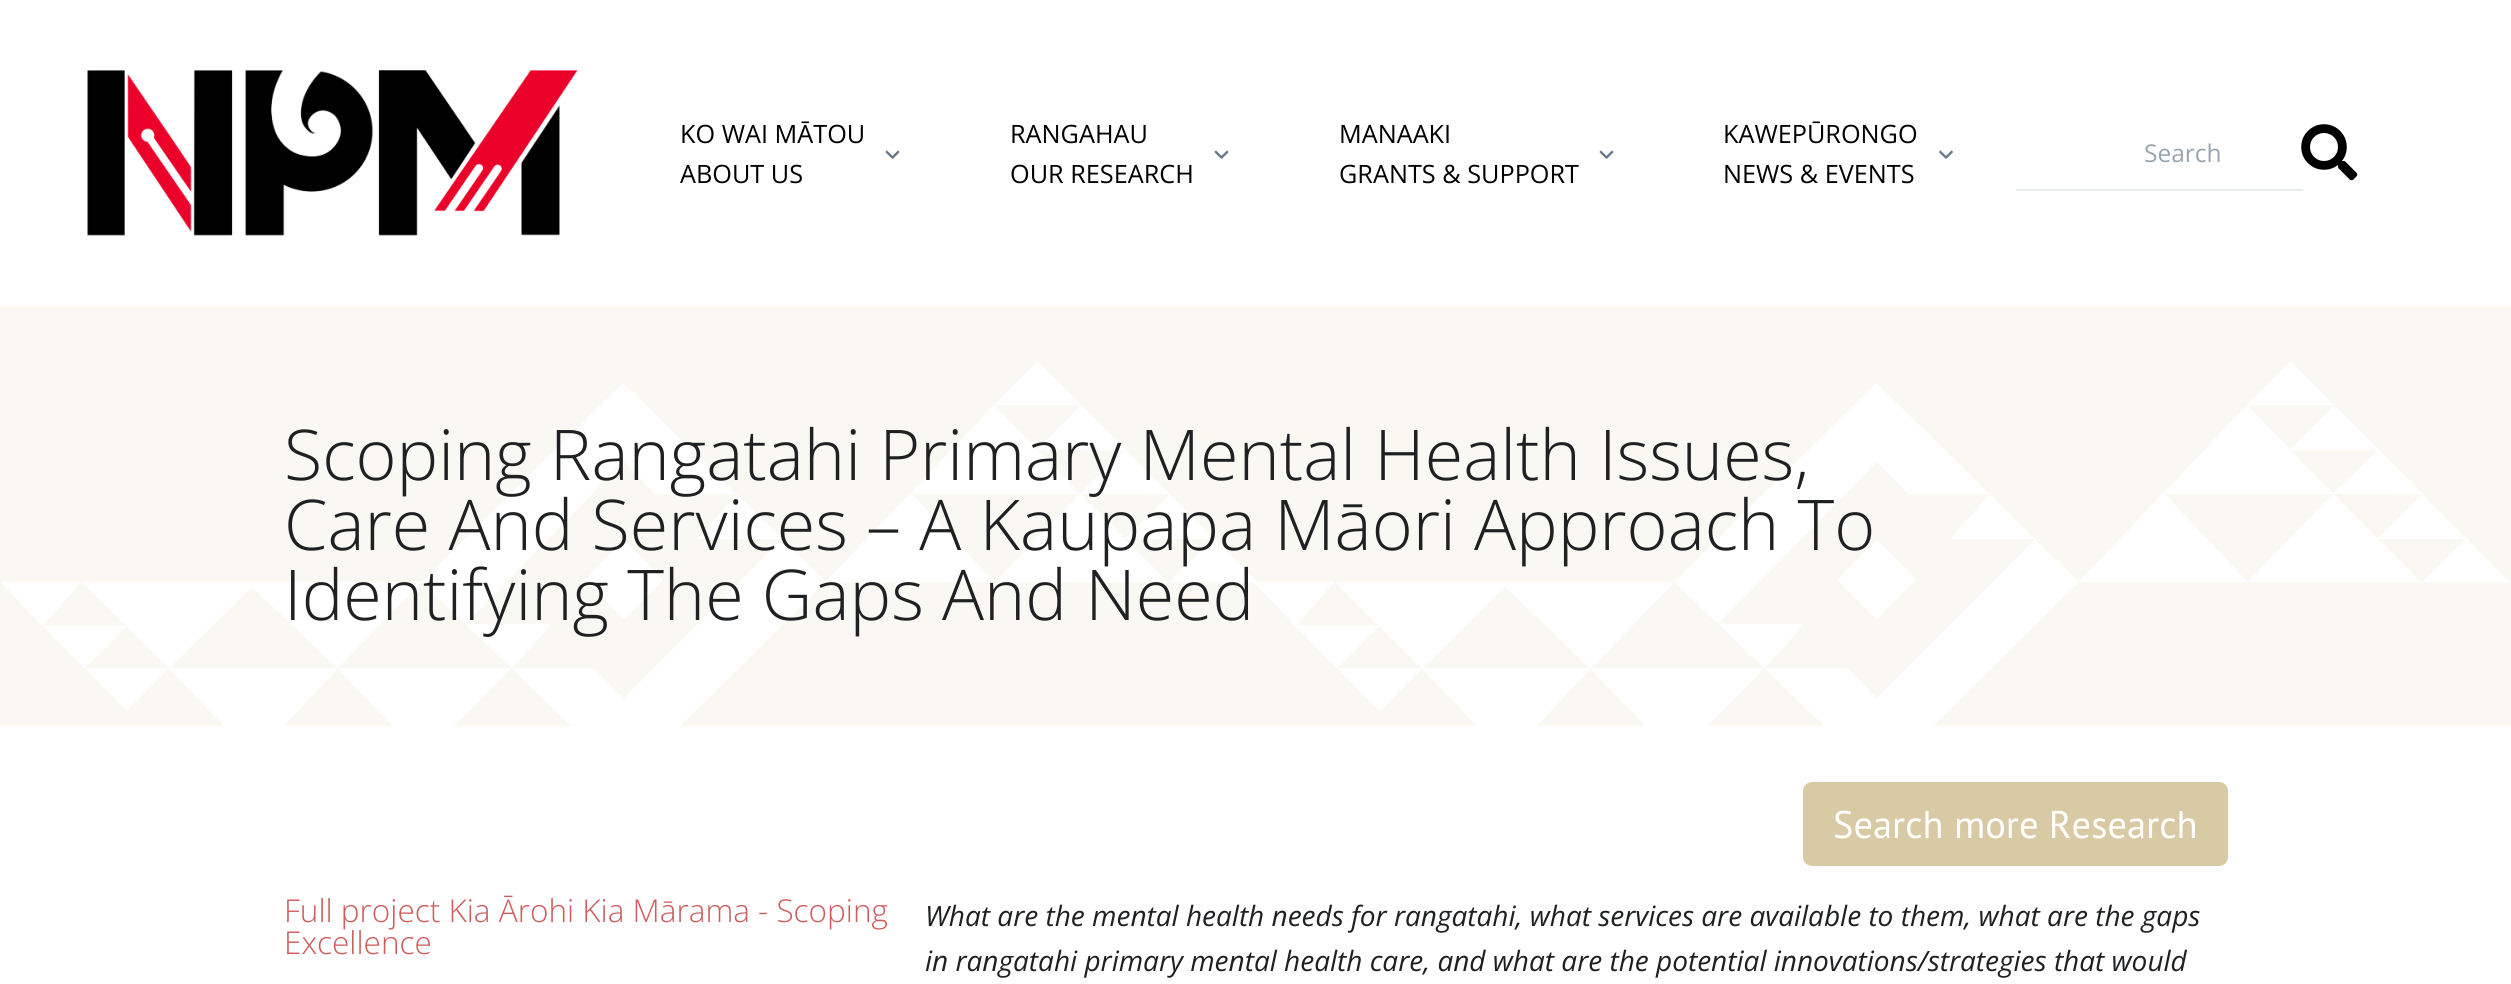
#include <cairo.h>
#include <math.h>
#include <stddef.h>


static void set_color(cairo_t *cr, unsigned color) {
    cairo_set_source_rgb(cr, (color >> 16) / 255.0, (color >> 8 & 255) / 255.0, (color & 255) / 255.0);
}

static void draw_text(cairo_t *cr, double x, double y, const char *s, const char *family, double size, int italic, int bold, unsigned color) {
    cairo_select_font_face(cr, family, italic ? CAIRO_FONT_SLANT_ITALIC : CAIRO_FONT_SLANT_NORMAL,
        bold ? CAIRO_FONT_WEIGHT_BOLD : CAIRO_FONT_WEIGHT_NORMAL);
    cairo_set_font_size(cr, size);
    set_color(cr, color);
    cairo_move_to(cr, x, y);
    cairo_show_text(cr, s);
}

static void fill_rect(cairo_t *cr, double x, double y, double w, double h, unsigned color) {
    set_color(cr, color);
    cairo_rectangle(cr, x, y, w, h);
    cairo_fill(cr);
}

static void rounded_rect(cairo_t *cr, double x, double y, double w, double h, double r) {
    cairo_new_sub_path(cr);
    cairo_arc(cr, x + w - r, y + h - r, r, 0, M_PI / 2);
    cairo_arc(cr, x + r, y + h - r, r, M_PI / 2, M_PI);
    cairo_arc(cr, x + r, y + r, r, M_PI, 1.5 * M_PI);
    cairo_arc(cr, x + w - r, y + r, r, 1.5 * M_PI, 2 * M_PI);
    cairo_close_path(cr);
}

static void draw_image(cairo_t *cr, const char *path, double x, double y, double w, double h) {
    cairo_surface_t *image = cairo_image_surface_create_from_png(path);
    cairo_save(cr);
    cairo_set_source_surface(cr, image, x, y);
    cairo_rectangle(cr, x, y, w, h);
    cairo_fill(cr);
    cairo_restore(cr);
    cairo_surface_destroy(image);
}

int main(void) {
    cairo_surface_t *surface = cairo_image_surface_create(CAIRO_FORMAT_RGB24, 2511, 984);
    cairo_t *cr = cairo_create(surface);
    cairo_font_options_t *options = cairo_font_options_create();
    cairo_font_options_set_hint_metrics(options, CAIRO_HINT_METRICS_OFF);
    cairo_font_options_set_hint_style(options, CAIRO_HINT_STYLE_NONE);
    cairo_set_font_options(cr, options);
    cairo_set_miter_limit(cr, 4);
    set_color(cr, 0xFFFFFF);
    cairo_paint(cr);
    draw_image(cr, "assets/img1.png", 87, 70, 491, 166);
    draw_text(cr, 680, 143, "KO WAI MĀTOU", "Open Sans", 25.25, 0, 0, 0x000000);
    draw_image(cr, "assets/img2.png", 885, 150, 15, 9);
    draw_text(cr, 680, 183, "ABOUT US", "Open Sans", 25.25, 0, 0, 0x000000);
    draw_text(cr, 1010, 143, "RANGAHAU", "Open Sans", 25.25, 0, 0, 0x000000);
    draw_image(cr, "assets/img2.png", 1214, 150, 15, 9);
    draw_text(cr, 1010, 183, "OUR RESEARCH", "Open Sans", 25.25, 0, 0, 0x000000);
    draw_text(cr, 1339, 143, "MANAAKI", "Open Sans", 25.25, 0, 0, 0x000000);
    draw_image(cr, "assets/img2.png", 1599, 150, 15, 9);
    draw_text(cr, 1339, 183, "GRANTS & SUPPORT", "Open Sans", 25.25, 0, 0, 0x000000);
    draw_text(cr, 1723, 143, "KAWEPŪRONGO", "Open Sans", 25.25, 0, 0, 0x000000);
    draw_image(cr, "assets/img3.png", 1939, 150, 14, 9);
    draw_text(cr, 1723, 183, "NEWS & EVENTS", "Open Sans", 25.25, 0, 0, 0x000000);
    fill_rect(cr, 2016, 189, 287, 2, 0xE7EAF3);
    draw_text(cr, 2144, 162, "Search", "Open Sans", 24.5, 0, 0, 0x97A4AF);
    draw_image(cr, "assets/img4.png", 2301, 124, 57, 57);
    fill_rect(cr, 0, 306, 2511, 420, 0xFAF8F2);
    draw_image(cr, "assets/img5.png", 1, 361, 2509, 365);
    draw_text(cr, 284, 480, "Scoping Rangatahi Primary Mental Health Issues,", "Open Sans Light", 70, 0, 0, 0x1E2022);
    draw_text(cr, 284, 550, "Care And Services – A Kaupapa Māori Approach To", "Open Sans Light", 70, 0, 0, 0x1E2022);
    draw_text(cr, 284, 620, "Identifying The Gaps And Need", "Open Sans Light", 70, 0, 0, 0x1E2022);
    set_color(cr, 0xD9CAA6);
    rounded_rect(cr, 1804, 783, 423, 82, 8);
    cairo_fill_preserve(cr);
    cairo_stroke(cr);
    draw_text(cr, 1833, 838, "Search more Research", "PT Sans", 38.5, 0, 0, 0xFFFFFF);
    draw_text(cr, 284, 922, "Full project Kia Ārohi Kia Mārama - Scoping", "Open Sans Light", 31.5, 0, 0, 0xCD5C5C);
    draw_text(cr, 284, 954, "Excellence", "Open Sans Light", 31.5, 0, 0, 0xCD5C5C);
    draw_text(cr, 925, 926, "What are the mental health needs for rangatahi, what services are available to them, what are the gaps", "Open Sans", 28, 1, 0, 0x1E2022);
    draw_text(cr, 925, 971, "in rangatahi primary mental health care, and what are the potential innovations/strategies that would", "Open Sans", 28, 1, 0, 0x1E2022);
    cairo_surface_write_to_png(surface, "output.png");
    cairo_font_options_destroy(options);
    cairo_destroy(cr);
    cairo_surface_destroy(surface);
    return 0;
}
